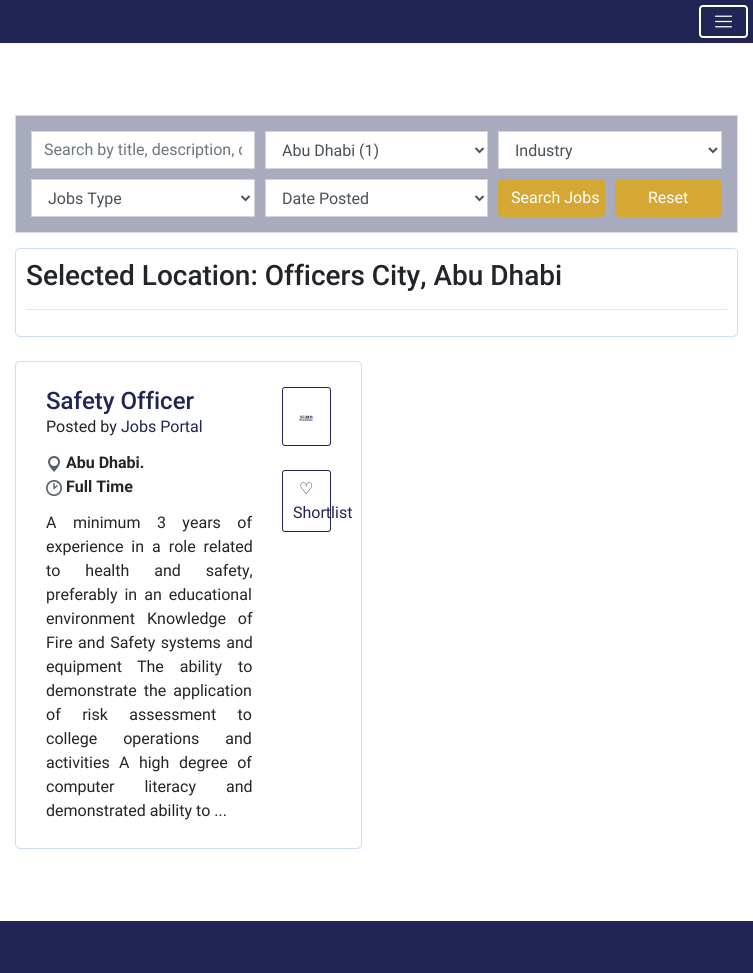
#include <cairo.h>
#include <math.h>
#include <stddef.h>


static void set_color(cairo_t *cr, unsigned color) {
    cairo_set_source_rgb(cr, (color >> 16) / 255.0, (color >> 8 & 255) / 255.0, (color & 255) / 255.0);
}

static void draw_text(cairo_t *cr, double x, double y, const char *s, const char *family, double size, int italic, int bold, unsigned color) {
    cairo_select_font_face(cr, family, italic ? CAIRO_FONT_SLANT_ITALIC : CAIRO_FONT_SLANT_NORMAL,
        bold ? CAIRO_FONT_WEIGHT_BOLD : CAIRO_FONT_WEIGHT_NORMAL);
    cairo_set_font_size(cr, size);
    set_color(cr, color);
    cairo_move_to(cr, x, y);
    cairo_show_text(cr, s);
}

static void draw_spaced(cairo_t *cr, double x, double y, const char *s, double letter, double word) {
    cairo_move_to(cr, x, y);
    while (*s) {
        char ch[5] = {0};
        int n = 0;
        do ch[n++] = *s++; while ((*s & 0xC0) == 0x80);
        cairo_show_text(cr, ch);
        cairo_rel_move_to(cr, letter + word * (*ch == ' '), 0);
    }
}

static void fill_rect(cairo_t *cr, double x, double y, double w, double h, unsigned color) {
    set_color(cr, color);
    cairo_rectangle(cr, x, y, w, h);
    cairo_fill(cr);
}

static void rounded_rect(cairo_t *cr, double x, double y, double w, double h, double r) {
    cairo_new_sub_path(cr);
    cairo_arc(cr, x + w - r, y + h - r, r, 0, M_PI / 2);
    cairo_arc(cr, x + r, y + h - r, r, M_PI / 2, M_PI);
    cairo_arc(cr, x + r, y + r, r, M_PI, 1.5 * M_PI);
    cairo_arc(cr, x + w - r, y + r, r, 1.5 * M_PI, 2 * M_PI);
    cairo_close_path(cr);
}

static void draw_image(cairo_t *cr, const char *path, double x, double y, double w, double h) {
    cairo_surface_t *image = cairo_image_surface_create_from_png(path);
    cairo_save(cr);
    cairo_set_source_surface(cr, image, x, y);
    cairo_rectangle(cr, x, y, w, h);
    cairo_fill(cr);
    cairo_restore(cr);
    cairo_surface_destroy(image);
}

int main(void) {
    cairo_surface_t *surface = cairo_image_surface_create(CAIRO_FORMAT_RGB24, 753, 973);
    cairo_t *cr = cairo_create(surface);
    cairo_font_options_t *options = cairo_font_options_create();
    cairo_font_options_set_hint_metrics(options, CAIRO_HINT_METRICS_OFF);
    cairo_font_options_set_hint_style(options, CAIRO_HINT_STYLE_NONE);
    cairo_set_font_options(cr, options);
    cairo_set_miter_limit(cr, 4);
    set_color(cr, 0xFFFFFF);
    cairo_paint(cr);
    fill_rect(cr, 0, 0, 753, 43, 0x202555);
    rounded_rect(cr, 700, 6, 47, 31, 3);
    set_color(cr, 0xFFFFFF);
    cairo_stroke(cr);
    draw_image(cr, "assets/img1.png", 715, 15, 17, 13);
    set_color(cr, 0xA8AABD);
    cairo_rectangle(cr, 15.5, 115.5, 722, 117);
    cairo_fill_preserve(cr);
    set_color(cr, 0xDDDDDD);
    cairo_set_line_width(cr, 1);
    cairo_stroke(cr);
    set_color(cr, 0xFFFFFF);
    cairo_rectangle(cr, 31.5, 131.5, 223, 37);
    cairo_fill_preserve(cr);
    set_color(cr, 0xCED4DA);
    cairo_stroke(cr);
    cairo_save(cr);
    cairo_rectangle(cr, 44, 140, 198, 19);
    cairo_clip(cr);
    draw_text(cr, 44, 155, "Search by title, description, c", "Roboto", 16, 0, 0, 0x6C757D);
    cairo_restore(cr);
    set_color(cr, 0xFFFFFF);
    cairo_rectangle(cr, 265.5, 131.5, 222, 37);
    cairo_fill_preserve(cr);
    set_color(cr, 0xCED4DA);
    cairo_stroke(cr);
    cairo_new_path(cr);
    cairo_move_to(cr, 475.5, 148);
    cairo_line_to(cr, 479.5, 152);
    cairo_line_to(cr, 483.5, 148);
    set_color(cr, 0x495057);
    cairo_set_line_width(cr, 2);
    cairo_stroke(cr);
    draw_text(cr, 282, 156, "Abu Dhabi (1)", "Roboto", 16, 0, 0, 0x495057);
    set_color(cr, 0xFFFFFF);
    cairo_rectangle(cr, 498.5, 131.5, 223, 37);
    cairo_fill_preserve(cr);
    set_color(cr, 0xCED4DA);
    cairo_set_line_width(cr, 1);
    cairo_stroke(cr);
    cairo_new_path(cr);
    cairo_move_to(cr, 709, 148);
    cairo_line_to(cr, 713, 152);
    cairo_line_to(cr, 717, 148);
    set_color(cr, 0x495057);
    cairo_set_line_width(cr, 2);
    cairo_stroke(cr);
    draw_text(cr, 515, 156, "Industry", "Roboto", 16, 0, 0, 0x495057);
    set_color(cr, 0xFFFFFF);
    cairo_rectangle(cr, 31.5, 179.5, 223, 37);
    cairo_fill_preserve(cr);
    set_color(cr, 0xCED4DA);
    cairo_set_line_width(cr, 1);
    cairo_stroke(cr);
    cairo_new_path(cr);
    cairo_move_to(cr, 241.5, 196);
    cairo_line_to(cr, 245.5, 200);
    cairo_line_to(cr, 249.5, 196);
    set_color(cr, 0x495057);
    cairo_set_line_width(cr, 2);
    cairo_stroke(cr);
    draw_text(cr, 48, 204, "Jobs Type", "Roboto", 16, 0, 0, 0x495057);
    set_color(cr, 0xFFFFFF);
    cairo_rectangle(cr, 265.5, 179.5, 222, 37);
    cairo_fill_preserve(cr);
    set_color(cr, 0xCED4DA);
    cairo_set_line_width(cr, 1);
    cairo_stroke(cr);
    cairo_new_path(cr);
    cairo_move_to(cr, 475.5, 196);
    cairo_line_to(cr, 479.5, 200);
    cairo_line_to(cr, 483.5, 196);
    set_color(cr, 0x495057);
    cairo_set_line_width(cr, 2);
    cairo_stroke(cr);
    draw_text(cr, 282, 204, "Date Posted", "Roboto", 16, 0, 0, 0x495057);
    set_color(cr, 0xD5A836);
    rounded_rect(cr, 498, 179, 107, 38, 4);
    cairo_fill(cr);
    draw_text(cr, 511, 203, "Search Jobs", "Roboto", 16, 0, 0, 0xFFFFFF);
    set_color(cr, 0xD5A836);
    rounded_rect(cr, 615, 179, 107, 38, 4);
    cairo_fill(cr);
    draw_text(cr, 648, 203, "Reset", "Roboto", 16, 0, 0, 0xFFFFFF);
    rounded_rect(cr, 15.5, 248.5, 722, 88, 4.5);
    set_color(cr, 0xCFDDF3);
    cairo_set_line_width(cr, 1);
    cairo_stroke(cr);
    draw_text(cr, 26, 285, "Selected Location: Officers City, Abu Dhabi", "Roboto Medium", 28, 0, 0, 0x212529);
    fill_rect(cr, 26, 309, 701, 1, 0xE6E6E6);
    rounded_rect(cr, 15.5, 361.5, 346, 487, 4.5);
    set_color(cr, 0xCFDDF3);
    cairo_stroke(cr);
    draw_text(cr, 46, 409, "Safety Officer", "Roboto Medium", 24, 0, 0, 0x202555);
    draw_text(cr, 46, 432, "Posted by", "Roboto", 16, 0, 0, 0x212529);
    draw_text(cr, 121, 432, "Jobs Portal", "Roboto", 16, 0, 0, 0x202555);
    draw_image(cr, "assets/img2.png", 48, 456, 12, 16);
    draw_text(cr, 66, 468, "Abu Dhabi.", "Roboto", 16, 0, 1, 0x212529);
    draw_image(cr, "assets/img3.png", 46, 480, 16, 16);
    draw_text(cr, 66, 492, "Full Time", "Roboto", 16, 0, 1, 0x212529);
    cairo_select_font_face(cr, "Roboto", CAIRO_FONT_SLANT_NORMAL, CAIRO_FONT_WEIGHT_NORMAL);
    draw_spaced(cr, 46, 528, "A minimum 3 years of", 0, 12.5);
    draw_spaced(cr, 46, 552, "experience in a role related", 0, 4);
    draw_spaced(cr, 46, 576, "to health and safety,", 0, 21);
    draw_spaced(cr, 46, 600, "preferably in an educational", 0, 3);
    draw_text(cr, 46, 624, "environment", "Roboto", 16, 0, 0, 0x212529);
    draw_spaced(cr, 147, 624, "Knowledge of", 0, 8);
    draw_spaced(cr, 46, 648, "Fire and Safety systems and", 0, 1.5);
    draw_text(cr, 46, 672, "equipment", "Roboto", 16, 0, 0, 0x212529);
    draw_spaced(cr, 137, 672, "The ability to", 0, 12);
    draw_spaced(cr, 46, 696, "demonstrate the application", 0, 3);
    draw_spaced(cr, 46, 720, "of risk assessment to", 0, 17.5);
    draw_spaced(cr, 46, 744, "college operations and", 0, 22);
    draw_text(cr, 46, 768, "activities", "Roboto", 16, 0, 0, 0x212529);
    draw_spaced(cr, 119, 768, "A high degree of", 0, 5.5);
    draw_spaced(cr, 46, 792, "computer literacy and", 0, 26);
    draw_text(cr, 46, 816, "demonstrated ability to ...", "Roboto", 16, 0, 0, 0x212529);
    rounded_rect(cr, 282.5, 387.5, 48, 58, 2.5);
    set_color(cr, 0x202555);
    cairo_stroke(cr);
    draw_image(cr, "assets/img4.png", 298, 415, 16, 6);
    rounded_rect(cr, 282.5, 470.5, 48, 61, 2.5);
    cairo_stroke(cr);
    draw_text(cr, 299, 494, "♡", "DejaVu Sans", 16, 0, 0, 0x202555);
    draw_text(cr, 293, 518, "Shortlist", "Roboto", 16, 0, 0, 0x202555);
    fill_rect(cr, 0, 921, 753, 52, 0x202555);
    cairo_surface_write_to_png(surface, "output.png");
    cairo_font_options_destroy(options);
    cairo_destroy(cr);
    cairo_surface_destroy(surface);
    return 0;
}
